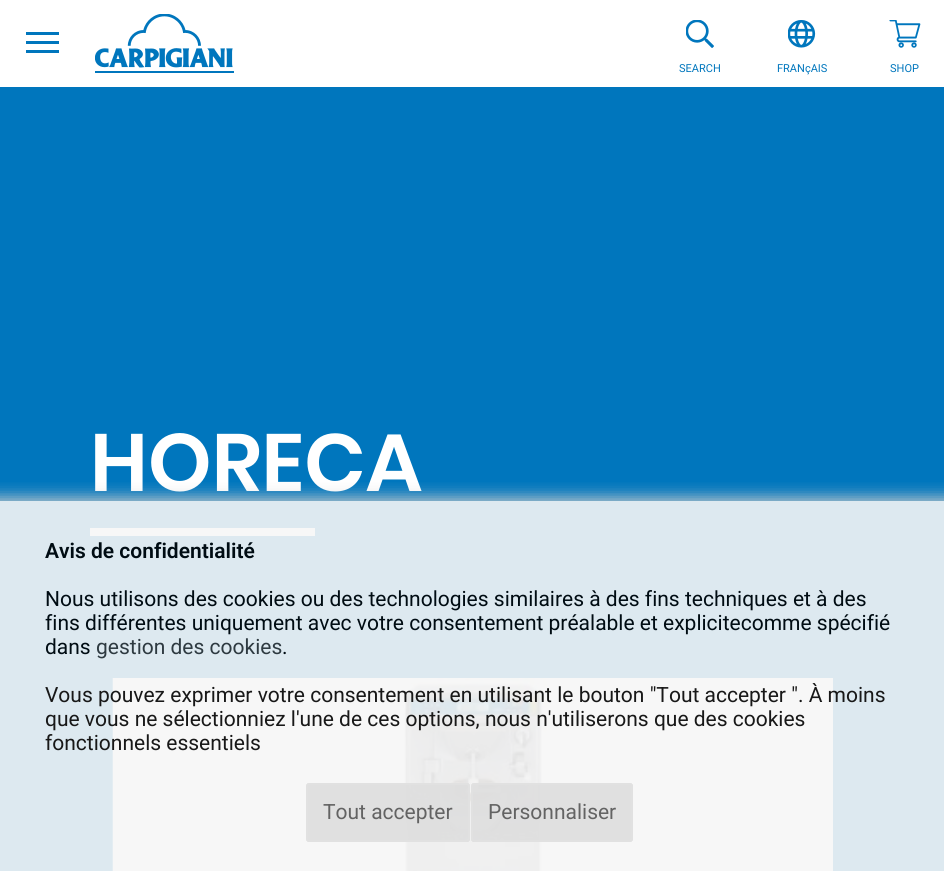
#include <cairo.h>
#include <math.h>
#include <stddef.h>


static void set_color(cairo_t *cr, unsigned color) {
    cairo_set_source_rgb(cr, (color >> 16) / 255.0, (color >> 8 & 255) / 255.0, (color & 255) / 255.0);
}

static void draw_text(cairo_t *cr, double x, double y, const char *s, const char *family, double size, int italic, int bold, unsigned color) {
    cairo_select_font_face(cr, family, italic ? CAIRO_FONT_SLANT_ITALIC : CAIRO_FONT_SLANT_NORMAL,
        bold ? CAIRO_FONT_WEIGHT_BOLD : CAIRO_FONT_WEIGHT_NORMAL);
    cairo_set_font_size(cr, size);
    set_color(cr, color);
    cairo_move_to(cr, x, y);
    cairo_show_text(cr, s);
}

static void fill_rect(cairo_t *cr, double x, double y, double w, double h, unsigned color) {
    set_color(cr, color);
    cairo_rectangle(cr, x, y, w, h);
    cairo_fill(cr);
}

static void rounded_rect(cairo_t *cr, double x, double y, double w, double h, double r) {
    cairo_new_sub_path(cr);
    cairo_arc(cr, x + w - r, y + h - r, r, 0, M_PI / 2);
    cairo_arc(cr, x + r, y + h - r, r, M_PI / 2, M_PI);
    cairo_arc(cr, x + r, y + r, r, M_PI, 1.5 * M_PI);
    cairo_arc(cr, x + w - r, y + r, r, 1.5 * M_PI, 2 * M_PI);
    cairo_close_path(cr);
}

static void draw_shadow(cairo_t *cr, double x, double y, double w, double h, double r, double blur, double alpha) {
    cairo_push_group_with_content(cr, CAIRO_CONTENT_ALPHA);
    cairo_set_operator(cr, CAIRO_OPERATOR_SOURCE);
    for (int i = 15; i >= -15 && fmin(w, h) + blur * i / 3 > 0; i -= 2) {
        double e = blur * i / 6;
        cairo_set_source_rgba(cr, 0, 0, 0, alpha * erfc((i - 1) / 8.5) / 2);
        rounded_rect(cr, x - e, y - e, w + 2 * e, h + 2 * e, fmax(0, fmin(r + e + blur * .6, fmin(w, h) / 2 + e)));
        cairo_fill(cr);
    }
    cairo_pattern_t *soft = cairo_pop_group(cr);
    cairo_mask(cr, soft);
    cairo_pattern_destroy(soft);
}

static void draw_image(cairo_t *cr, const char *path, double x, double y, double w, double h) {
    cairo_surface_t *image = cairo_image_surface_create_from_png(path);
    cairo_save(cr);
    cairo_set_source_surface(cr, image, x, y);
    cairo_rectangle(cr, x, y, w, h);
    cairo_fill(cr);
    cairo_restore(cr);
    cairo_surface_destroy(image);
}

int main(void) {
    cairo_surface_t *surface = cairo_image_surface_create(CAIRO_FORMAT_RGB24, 944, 871);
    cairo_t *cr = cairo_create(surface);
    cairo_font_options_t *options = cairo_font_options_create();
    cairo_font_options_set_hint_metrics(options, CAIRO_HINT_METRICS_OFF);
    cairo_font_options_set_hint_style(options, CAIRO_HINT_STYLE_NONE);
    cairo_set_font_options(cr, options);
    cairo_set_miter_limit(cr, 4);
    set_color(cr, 0x0076BD);
    cairo_paint(cr);
    fill_rect(cr, 0, 501, 944, 370, 0xDDE9F0);
    fill_rect(cr, 0, 0, 944, 87, 0xFFFFFF);
    fill_rect(cr, 26, 32, 33, 3, 0x0076BD);
    fill_rect(cr, 26, 41, 33, 3, 0x0076BD);
    fill_rect(cr, 26, 50, 33, 3, 0x0076BD);
    draw_image(cr, "assets/img1.png", 95, 14, 139, 59);
    draw_image(cr, "assets/img2.png", 686, 20, 28, 28);
    draw_text(cr, 679, 72, "SEARCH", "Roboto", 11, 0, 0, 0x0076BD);
    draw_image(cr, "assets/img3.png", 788, 20, 28, 28);
    draw_text(cr, 777, 72, "FRANçAIS", "Roboto", 11, 0, 0, 0x0076BD);
    draw_image(cr, "assets/img4.png", 889, 20, 32, 28);
    draw_text(cr, 890, 72, "SHOP", "Roboto", 11, 0, 0, 0x0076BD);
    draw_text(cr, 90, 491, "HORECA", "Poppins SemiBold", 81, 0, 0, 0xFFFFFF);
    fill_rect(cr, 90, 528, 225, 8, 0xF7F7F7);
    fill_rect(cr, 547, 678, 286, 193, 0xF7F7F7);
    draw_image(cr, "assets/img5.png", 112, 678, 435, 193);
    cairo_save(cr);
    cairo_rectangle(cr, 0, 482, 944, 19);
    cairo_clip(cr);
    set_color(cr, 0xCCCCCC);
    draw_shadow(cr, -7, 497, 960, 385, 0, 7.5, 0.9);
    cairo_restore(cr);
    draw_text(cr, 45, 558, "Avis de confidentialité", "Roboto SemiBold", 21, 0, 0, 0x000C13);
    draw_text(cr, 45, 606, "Nous utilisons des cookies ou des technologies similaires à des fins techniques et à des", "Roboto", 21, 0, 0, 0x000C13);
    draw_text(cr, 45, 630, "fins différentes uniquement avec votre consentement préalable et explicitecomme spécifié", "Roboto", 21, 0, 0, 0x000C13);
    draw_text(cr, 45, 654, "dans", "Roboto", 21, 0, 0, 0x000C13);
    draw_text(cr, 96, 654, "gestion des cookies", "Roboto", 21, 0, 0, 0x2E3A41);
    draw_text(cr, 282, 654, ".", "Roboto", 21, 0, 0, 0x000C13);
    draw_text(cr, 45, 702, "Vous pouvez exprimer votre consentement en utilisant le bouton \"Tout accepter \". À moins", "Roboto", 21, 0, 0, 0x181818);
    draw_text(cr, 45, 726, "que vous ne sélectionniez l'une de ces options, nous n'utiliserons que des cookies", "Roboto", 21, 0, 0, 0x181818);
    draw_text(cr, 45, 750, "fonctionnels essentiels", "Roboto", 21, 0, 0, 0x181818);
    cairo_set_source_rgba(cr, 0.871, 0.871, 0.871, 0.9);
    rounded_rect(cr, 306, 783, 164, 59, 3);
    cairo_fill(cr);
    rounded_rect(cr, 307, 784, 162, 57, 2);
    cairo_set_source_rgba(cr, 0.882, 0.882, 0.882, 0.9);
    cairo_stroke(cr);
    draw_text(cr, 323, 819, "Tout accepter", "Roboto", 21, 0, 0, 0x636363);
    cairo_set_source_rgba(cr, 0.871, 0.871, 0.871, 0.9);
    rounded_rect(cr, 471, 783, 162, 59, 3);
    cairo_fill(cr);
    rounded_rect(cr, 472, 784, 160, 57, 2);
    cairo_set_source_rgba(cr, 0.882, 0.882, 0.882, 0.9);
    cairo_stroke(cr);
    draw_text(cr, 488, 819, "Personnaliser", "Roboto", 21, 0, 0, 0x636363);
    cairo_surface_write_to_png(surface, "output.png");
    cairo_font_options_destroy(options);
    cairo_destroy(cr);
    cairo_surface_destroy(surface);
    return 0;
}
